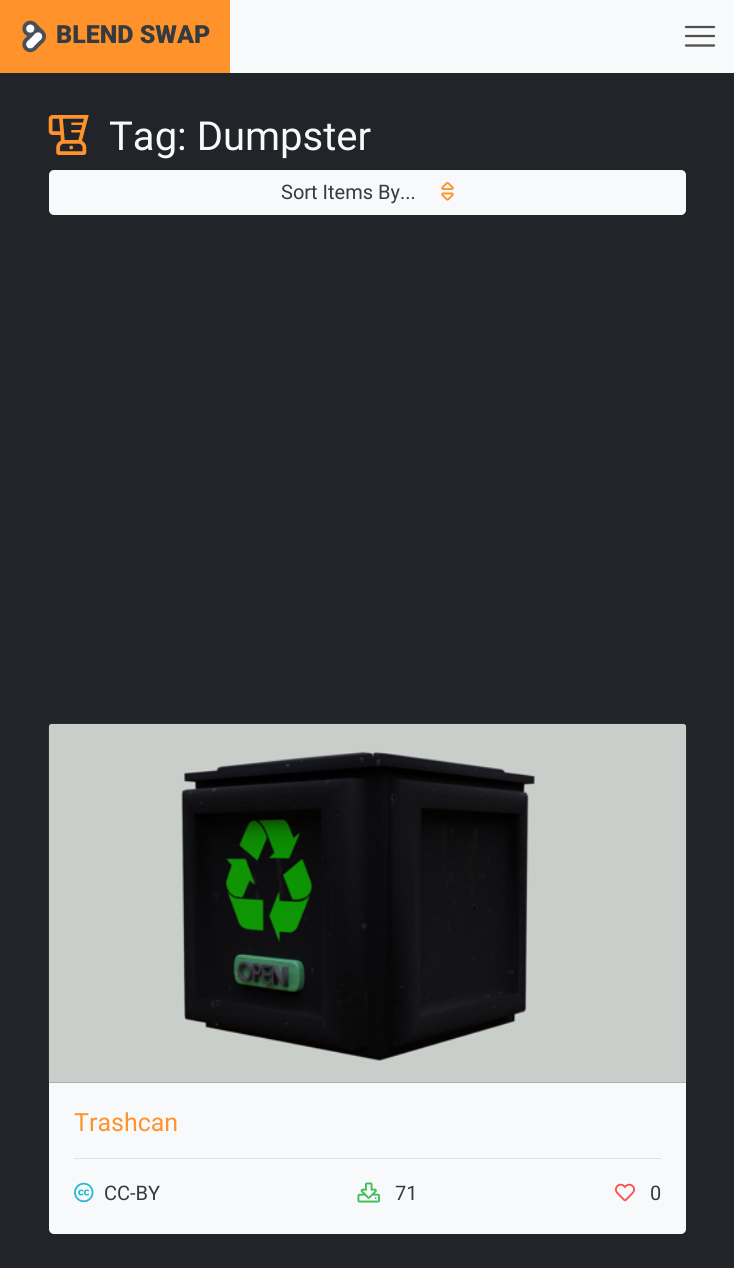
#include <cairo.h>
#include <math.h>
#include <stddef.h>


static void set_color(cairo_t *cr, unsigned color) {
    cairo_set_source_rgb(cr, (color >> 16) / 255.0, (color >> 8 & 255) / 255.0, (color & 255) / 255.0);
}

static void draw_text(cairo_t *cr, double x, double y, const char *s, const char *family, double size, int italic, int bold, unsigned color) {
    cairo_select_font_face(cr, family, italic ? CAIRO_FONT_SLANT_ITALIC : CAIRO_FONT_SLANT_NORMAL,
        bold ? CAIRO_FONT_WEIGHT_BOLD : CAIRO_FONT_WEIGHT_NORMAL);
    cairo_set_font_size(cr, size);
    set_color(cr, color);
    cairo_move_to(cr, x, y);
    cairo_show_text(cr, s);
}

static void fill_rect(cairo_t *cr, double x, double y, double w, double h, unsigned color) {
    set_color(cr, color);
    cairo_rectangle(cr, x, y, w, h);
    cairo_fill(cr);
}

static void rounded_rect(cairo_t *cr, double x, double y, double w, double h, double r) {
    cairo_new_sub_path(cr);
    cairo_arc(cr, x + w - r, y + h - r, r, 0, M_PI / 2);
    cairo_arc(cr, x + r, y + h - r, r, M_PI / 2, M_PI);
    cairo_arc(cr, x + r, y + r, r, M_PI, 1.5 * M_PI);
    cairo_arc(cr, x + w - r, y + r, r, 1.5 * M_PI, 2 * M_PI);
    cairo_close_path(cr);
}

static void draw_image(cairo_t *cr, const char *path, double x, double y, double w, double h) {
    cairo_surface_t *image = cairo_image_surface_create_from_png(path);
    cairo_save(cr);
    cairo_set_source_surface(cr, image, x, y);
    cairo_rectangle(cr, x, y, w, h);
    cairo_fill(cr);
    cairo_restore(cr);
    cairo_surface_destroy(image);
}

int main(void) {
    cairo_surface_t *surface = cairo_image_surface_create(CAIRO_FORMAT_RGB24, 734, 1268);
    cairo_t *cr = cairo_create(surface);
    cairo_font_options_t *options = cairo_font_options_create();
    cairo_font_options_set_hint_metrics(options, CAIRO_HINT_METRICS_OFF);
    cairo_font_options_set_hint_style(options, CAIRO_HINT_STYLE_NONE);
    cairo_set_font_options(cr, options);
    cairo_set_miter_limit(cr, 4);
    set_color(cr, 0x212529);
    cairo_paint(cr);
    fill_rect(cr, 230, 0, 504, 73, 0xF8F9FA);
    fill_rect(cr, 0, 0, 230, 73, 0xFF922B);
    draw_image(cr, "assets/img1.png", 22, 20, 24, 33);
    draw_text(cr, 56, 43, "BLEND SWAP", "Roboto Black", 25, 0, 0, 0x343A40);
    cairo_new_path(cr);
    cairo_move_to(cr, 686, 27);
    cairo_line_to(cr, 714, 27);
    cairo_move_to(cr, 686, 36);
    cairo_line_to(cr, 714, 36);
    cairo_move_to(cr, 686, 45.5);
    cairo_line_to(cr, 714, 45.5);
    set_color(cr, 0x4F4F4F);
    cairo_set_line_width(cr, 2.3);
    cairo_set_line_cap(cr, CAIRO_LINE_CAP_ROUND);
    cairo_stroke(cr);
    draw_image(cr, "assets/img2.png", 48, 115, 41, 40);
    draw_text(cr, 109, 150, "Tag: Dumpster", "Roboto", 40, 0, 0, 0xF8F9FA);
    rounded_rect(cr, 49, 170, 637, 45, 5);
    cairo_fill(cr);
    draw_text(cr, 281, 199, "Sort Items By...", "Roboto", 20, 0, 0, 0x343A40);
    draw_image(cr, "assets/img3.png", 441, 181, 13, 20);
    set_color(cr, 0xF8F9FA);
    rounded_rect(cr, 49, 724, 637, 510, 5);
    cairo_fill(cr);
    cairo_set_source_rgba(cr, 0.502, 0.502, 0.502, 0.25);
    cairo_new_path(cr);
    cairo_move_to(cr, 53, 724);
    cairo_line_to(cr, 682, 724);
    cairo_curve_to(cr, 684, 724, 686, 726, 686, 728);
    cairo_line_to(cr, 686, 1083);
    cairo_line_to(cr, 49, 1083);
    cairo_line_to(cr, 49, 728);
    cairo_curve_to(cr, 49, 726, 51, 724, 53, 724);
    cairo_close_path(cr);
    cairo_fill(cr);
    cairo_new_path(cr);
    cairo_move_to(cr, 53, 724);
    cairo_line_to(cr, 682, 724);
    cairo_curve_to(cr, 684, 724, 686, 726, 686, 728);
    cairo_line_to(cr, 686, 1083);
    cairo_line_to(cr, 49, 1083);
    cairo_line_to(cr, 49, 728);
    cairo_curve_to(cr, 49, 726, 51, 724, 53, 724);
    cairo_close_path(cr);
    cairo_fill(cr);
    cairo_new_path(cr);
    cairo_move_to(cr, 53, 724);
    cairo_line_to(cr, 682, 724);
    cairo_curve_to(cr, 684, 724, 686, 726, 686, 728);
    cairo_line_to(cr, 686, 1083);
    cairo_line_to(cr, 49, 1083);
    cairo_line_to(cr, 49, 728);
    cairo_curve_to(cr, 49, 726, 51, 724, 53, 724);
    cairo_close_path(cr);
    cairo_fill(cr);
    cairo_new_path(cr);
    cairo_move_to(cr, 53, 724);
    cairo_line_to(cr, 682, 724);
    cairo_curve_to(cr, 684, 724, 686, 726, 686, 728);
    cairo_line_to(cr, 686, 1083);
    cairo_line_to(cr, 49, 1083);
    cairo_line_to(cr, 49, 728);
    cairo_curve_to(cr, 49, 726, 51, 724, 53, 724);
    cairo_close_path(cr);
    cairo_fill(cr);
    draw_image(cr, "assets/img4.png", 48, 723, 639, 360);
    draw_text(cr, 74, 1131, "Trashcan", "Roboto", 25, 0, 0, 0xFF922B);
    fill_rect(cr, 74, 1158, 587, 1, 0xDFE0E1);
    draw_image(cr, "assets/img5.png", 74, 1182, 20, 21);
    draw_text(cr, 104, 1200, "CC-BY", "Roboto", 20, 0, 0, 0x343A40);
    draw_image(cr, "assets/img6.png", 357, 1182, 23, 21);
    draw_text(cr, 395, 1200, "71", "Roboto", 20, 0, 0, 0x343A40);
    draw_image(cr, "assets/img7.png", 615, 1183, 20, 19);
    draw_text(cr, 650, 1200, "0", "Roboto", 20, 0, 0, 0x343A40);
    cairo_surface_write_to_png(surface, "output.png");
    cairo_font_options_destroy(options);
    cairo_destroy(cr);
    cairo_surface_destroy(surface);
    return 0;
}
